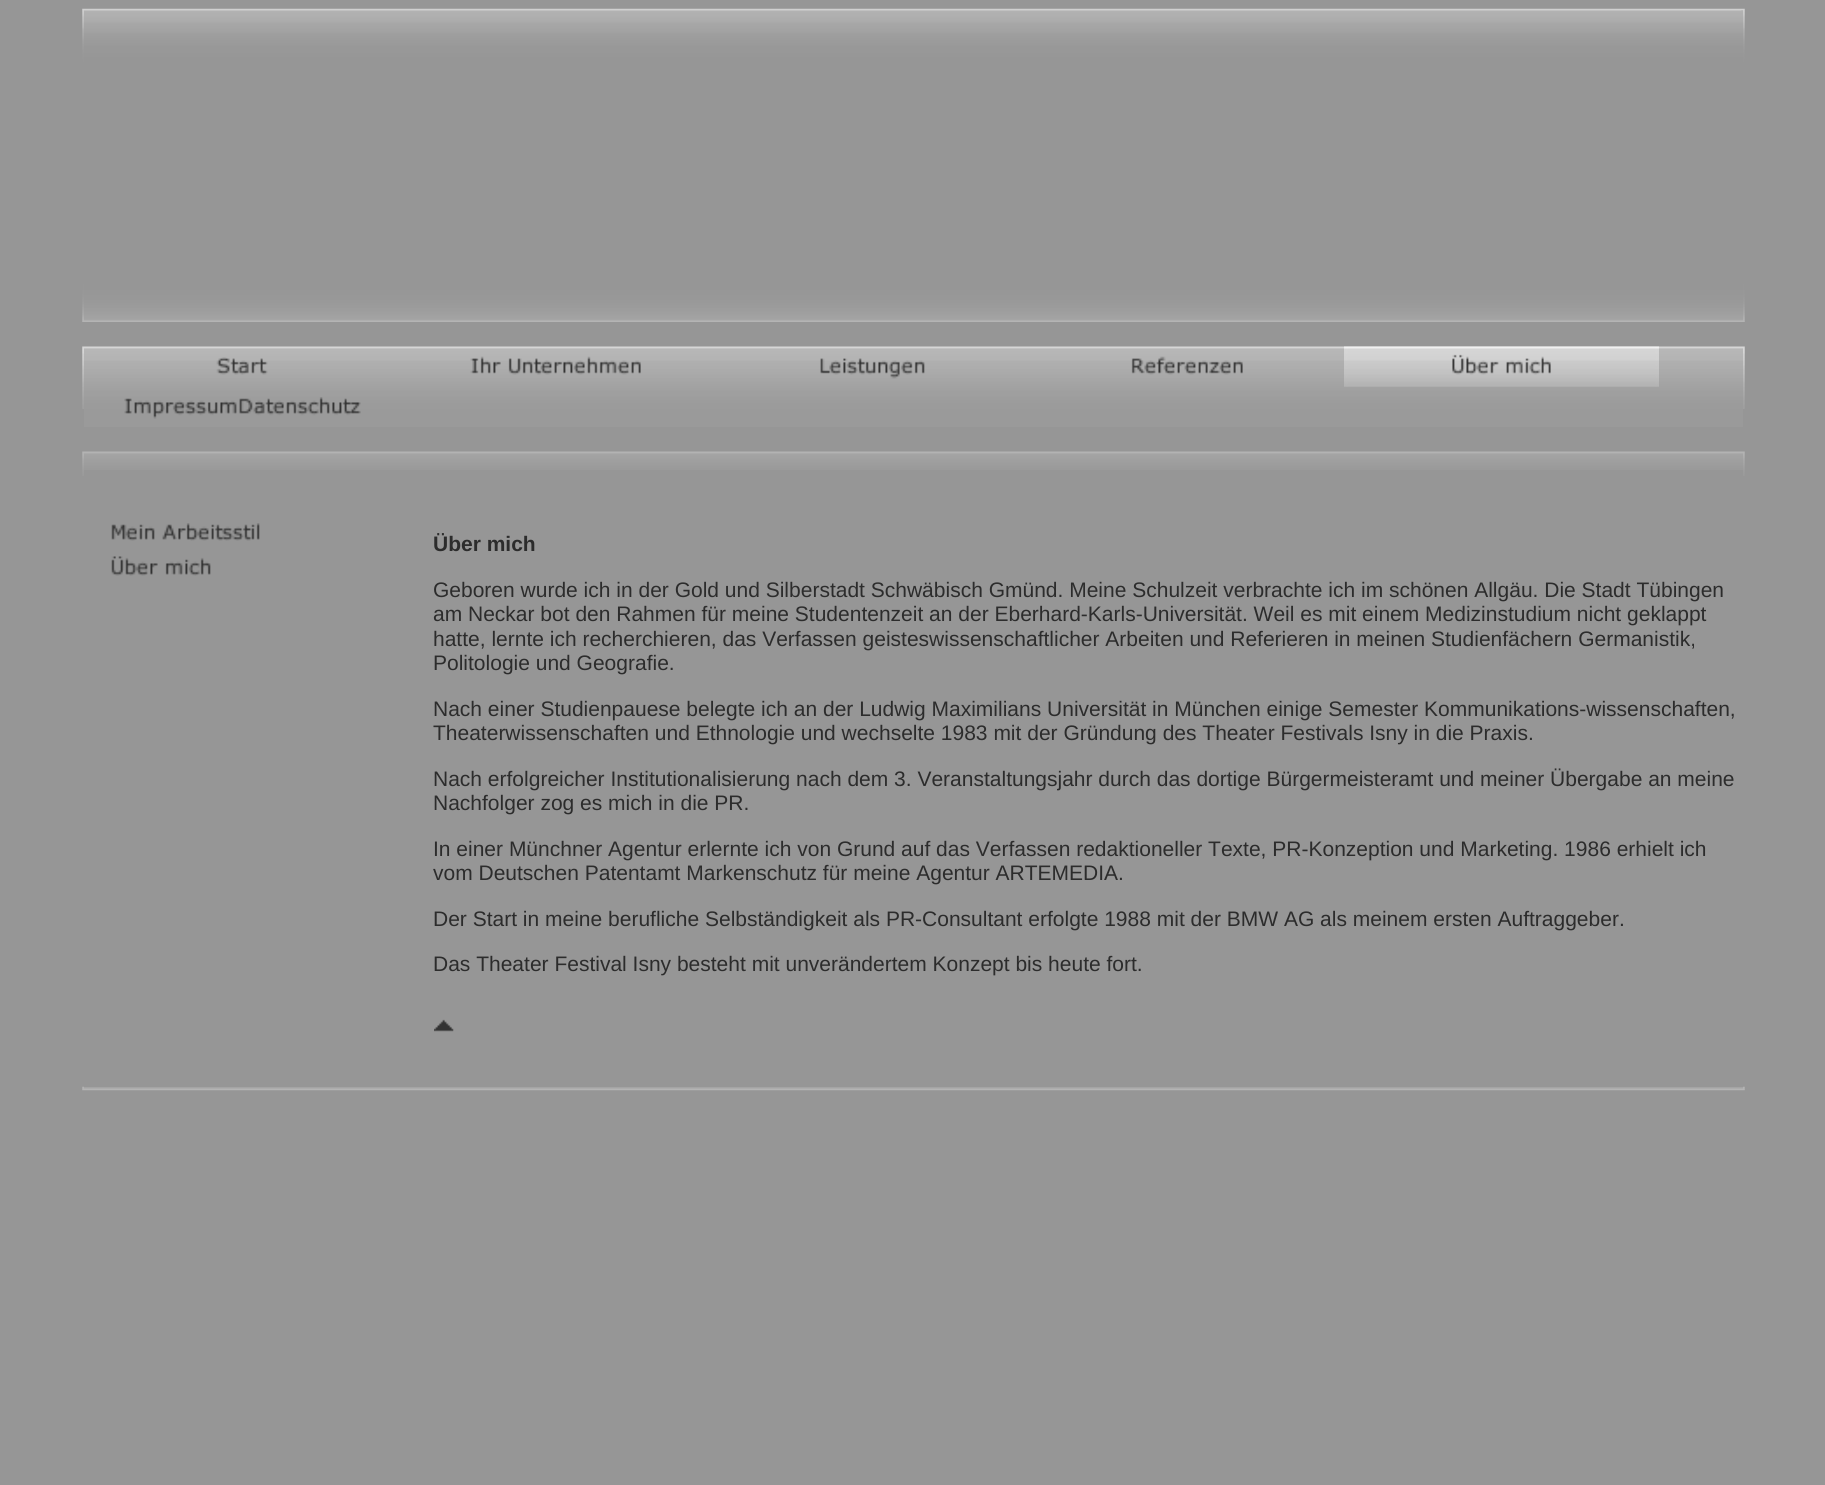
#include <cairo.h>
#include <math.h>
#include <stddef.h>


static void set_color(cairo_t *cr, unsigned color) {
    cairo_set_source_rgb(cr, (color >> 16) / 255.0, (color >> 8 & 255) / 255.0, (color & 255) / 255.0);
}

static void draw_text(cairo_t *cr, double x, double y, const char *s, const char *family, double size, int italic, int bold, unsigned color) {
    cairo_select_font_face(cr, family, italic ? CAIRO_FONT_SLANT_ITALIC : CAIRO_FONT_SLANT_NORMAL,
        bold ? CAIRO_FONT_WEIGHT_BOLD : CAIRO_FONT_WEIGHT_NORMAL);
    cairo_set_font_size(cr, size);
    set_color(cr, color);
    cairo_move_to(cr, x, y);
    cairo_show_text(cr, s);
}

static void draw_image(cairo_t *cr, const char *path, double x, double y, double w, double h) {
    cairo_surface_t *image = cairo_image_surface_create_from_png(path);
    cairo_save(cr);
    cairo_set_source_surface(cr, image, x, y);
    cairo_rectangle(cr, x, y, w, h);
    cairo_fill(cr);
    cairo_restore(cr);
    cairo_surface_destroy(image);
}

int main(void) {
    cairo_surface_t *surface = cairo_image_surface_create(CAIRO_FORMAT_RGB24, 1825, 1485);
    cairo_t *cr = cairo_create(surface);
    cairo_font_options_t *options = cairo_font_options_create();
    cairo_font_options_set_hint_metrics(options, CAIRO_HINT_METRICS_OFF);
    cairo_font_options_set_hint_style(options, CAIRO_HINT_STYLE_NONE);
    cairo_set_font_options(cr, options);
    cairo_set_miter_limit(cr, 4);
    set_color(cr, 0x969696);
    cairo_paint(cr);
    draw_image(cr, "assets/img1.png", 82, 8, 2, 314);
    draw_image(cr, "assets/img2.png", 84, 8, 1659, 314);
    draw_image(cr, "assets/img3.png", 1741, 10, 2, 1);
    draw_image(cr, "assets/img4.png", 1743, 8, 2, 314);
    draw_image(cr, "assets/img5.png", 82, 346, 2, 63);
    draw_image(cr, "assets/img6.png", 84, 346, 1659, 81);
    draw_image(cr, "assets/img7.png", 216, 357, 52, 18);
    draw_image(cr, "assets/img8.png", 470, 356, 171, 19);
    draw_image(cr, "assets/img9.png", 820, 358, 105, 21);
    draw_image(cr, "assets/img10.png", 1131, 356, 112, 19);
    draw_image(cr, "assets/img11.png", 1344, 346, 315, 41);
    draw_image(cr, "assets/img12.png", 124, 397, 237, 22);
    draw_image(cr, "assets/img13.png", 1743, 346, 2, 63);
    draw_image(cr, "assets/img14.png", 82, 451, 2, 25);
    draw_image(cr, "assets/img15.png", 84, 451, 1659, 19);
    draw_image(cr, "assets/img16.png", 1743, 451, 2, 25);
    draw_image(cr, "assets/img17.png", 111, 523, 149, 18);
    draw_image(cr, "assets/img18.png", 111, 556, 100, 20);
    draw_text(cr, 433, 551, "Über mich", "Liberation Sans", 21, 0, 1, 0x2C2C2C);
    draw_text(cr, 433, 597, "Geboren wurde ich in der Gold und Silberstadt Schwäbisch Gmünd. Meine Schulzeit verbrachte ich im schönen Allgäu. Die Stadt Tübingen", "Liberation Sans", 21, 0, 0, 0x2C2C2C);
    draw_text(cr, 433, 621, "am Neckar bot den Rahmen für meine Studentenzeit an der Eberhard-Karls-Universität. Weil es mit einem Medizinstudium nicht geklappt", "Liberation Sans", 21, 0, 0, 0x2C2C2C);
    draw_text(cr, 433, 646, "hatte, lernte ich recherchieren, das Verfassen geisteswissenschaftlicher Arbeiten und Referieren in meinen Studienfächern Germanistik,", "Liberation Sans", 21, 0, 0, 0x2C2C2C);
    draw_text(cr, 433, 670, "Politologie und Geografie.", "Liberation Sans", 21, 0, 0, 0x2C2C2C);
    draw_text(cr, 433, 716, "Nach einer Studienpauese belegte ich an der Ludwig Maximilians Universität in München einige Semester Kommunikations-wissenschaften,", "Liberation Sans", 21, 0, 0, 0x2C2C2C);
    draw_text(cr, 433, 740, "Theaterwissenschaften und Ethnologie und wechselte 1983 mit der Gründung des Theater Festivals Isny in die Praxis.", "Liberation Sans", 21, 0, 0, 0x2C2C2C);
    draw_text(cr, 433, 786, "Nach erfolgreicher Institutionalisierung nach dem 3. Veranstaltungsjahr durch das dortige Bürgermeisteramt und meiner Übergabe an meine", "Liberation Sans", 21, 0, 0, 0x2C2C2C);
    draw_text(cr, 433, 810, "Nachfolger zog es mich in die PR.", "Liberation Sans", 21, 0, 0, 0x2C2C2C);
    draw_text(cr, 433, 856, "In einer Münchner Agentur erlernte ich von Grund auf das Verfassen redaktioneller Texte, PR-Konzeption und Marketing. 1986 erhielt ich", "Liberation Sans", 21, 0, 0, 0x2C2C2C);
    draw_text(cr, 433, 880, "vom Deutschen Patentamt Markenschutz für meine Agentur ARTEMEDIA.", "Liberation Sans", 21, 0, 0, 0x2C2C2C);
    draw_text(cr, 433, 926, "Der Start in meine berufliche Selbständigkeit als PR-Consultant erfolgte 1988 mit der BMW AG als meinem ersten Auftraggeber.", "Liberation Sans", 21, 0, 0, 0x2C2C2C);
    draw_text(cr, 433, 971, "Das Theater Festival Isny besteht mit unverändertem Konzept bis heute fort.", "Liberation Sans", 21, 0, 0, 0x2C2C2C);
    draw_image(cr, "assets/img19.png", 434, 1019, 20, 13);
    draw_image(cr, "assets/img20.png", 82, 1086, 2, 5);
    draw_image(cr, "assets/img21.png", 84, 1087, 1659, 4);
    draw_image(cr, "assets/img22.png", 1743, 1086, 2, 5);
    cairo_surface_write_to_png(surface, "output.png");
    cairo_font_options_destroy(options);
    cairo_destroy(cr);
    cairo_surface_destroy(surface);
    return 0;
}
